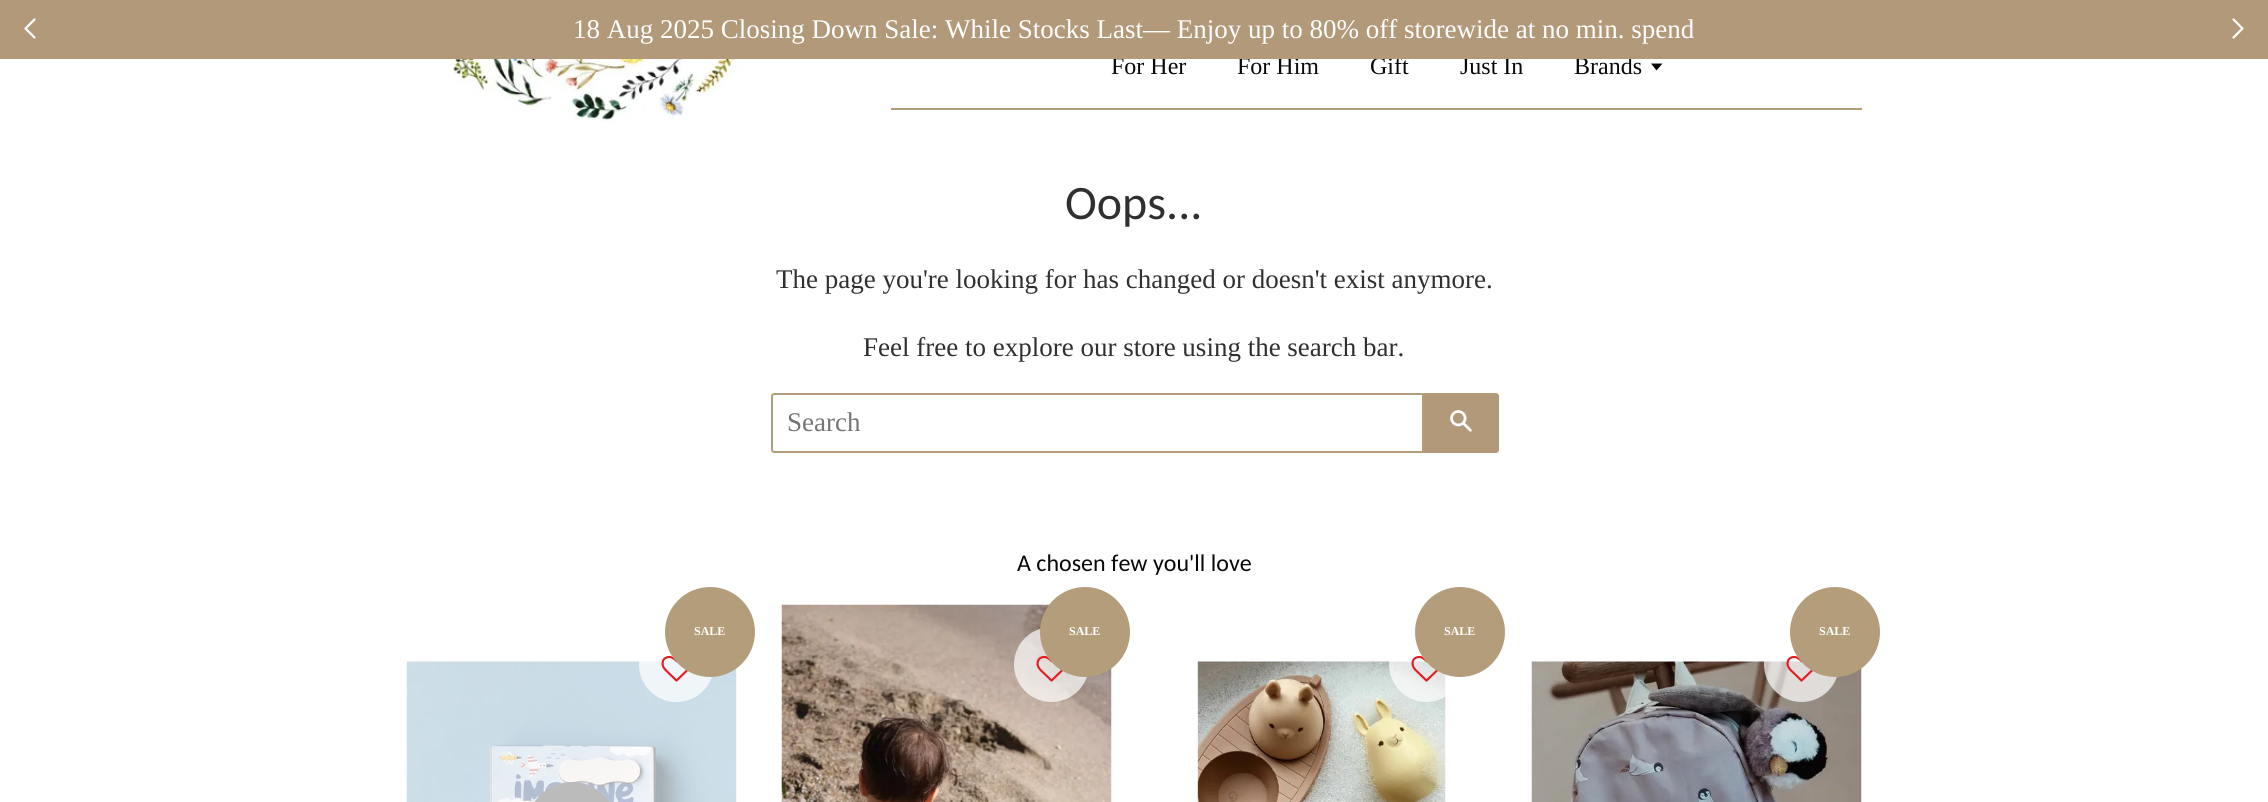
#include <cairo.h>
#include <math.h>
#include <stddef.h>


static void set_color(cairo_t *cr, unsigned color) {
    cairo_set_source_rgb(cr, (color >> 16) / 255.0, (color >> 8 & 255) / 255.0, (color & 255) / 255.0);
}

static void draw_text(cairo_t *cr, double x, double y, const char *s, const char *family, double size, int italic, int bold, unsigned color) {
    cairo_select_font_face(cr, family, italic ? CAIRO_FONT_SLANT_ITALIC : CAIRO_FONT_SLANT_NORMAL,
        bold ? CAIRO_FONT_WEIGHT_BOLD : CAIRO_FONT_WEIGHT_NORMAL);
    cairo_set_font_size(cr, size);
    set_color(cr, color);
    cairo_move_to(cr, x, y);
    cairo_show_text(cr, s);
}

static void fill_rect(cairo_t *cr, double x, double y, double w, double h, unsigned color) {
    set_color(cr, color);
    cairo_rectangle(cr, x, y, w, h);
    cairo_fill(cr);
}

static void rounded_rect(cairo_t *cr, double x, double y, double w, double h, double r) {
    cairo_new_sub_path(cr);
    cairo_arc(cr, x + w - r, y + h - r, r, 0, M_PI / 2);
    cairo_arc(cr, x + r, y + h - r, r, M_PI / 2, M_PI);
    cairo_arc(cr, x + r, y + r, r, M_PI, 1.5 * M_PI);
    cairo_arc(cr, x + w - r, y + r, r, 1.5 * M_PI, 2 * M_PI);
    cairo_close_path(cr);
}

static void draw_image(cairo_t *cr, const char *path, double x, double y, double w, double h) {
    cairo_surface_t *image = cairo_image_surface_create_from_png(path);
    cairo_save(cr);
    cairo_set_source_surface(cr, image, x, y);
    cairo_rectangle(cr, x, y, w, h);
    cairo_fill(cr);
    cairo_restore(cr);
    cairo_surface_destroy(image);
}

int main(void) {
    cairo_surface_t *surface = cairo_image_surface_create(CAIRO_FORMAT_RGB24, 2268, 802);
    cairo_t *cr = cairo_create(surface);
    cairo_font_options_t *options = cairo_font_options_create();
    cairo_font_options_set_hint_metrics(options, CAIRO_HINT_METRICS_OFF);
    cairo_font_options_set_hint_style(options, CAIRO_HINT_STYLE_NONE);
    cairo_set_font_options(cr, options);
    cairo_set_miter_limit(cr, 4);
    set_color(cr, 0xFFFFFF);
    cairo_paint(cr);
    draw_text(cr, 1111, 74, "For Her", "Liberation Serif", 24, 0, 0, 0x090909);
    draw_text(cr, 1237, 74, "For Him", "Liberation Serif", 24, 0, 0, 0x090909);
    draw_text(cr, 1370, 74, "Gift", "Liberation Serif", 24, 0, 0, 0x090909);
    draw_text(cr, 1460, 74, "Just In", "Liberation Serif", 24, 0, 0, 0x090909);
    draw_text(cr, 1574, 74, "Brands", "Liberation Serif", 24, 0, 0, 0x090909);
    fill_rect(cr, 0, 0, 2268, 59, 0xB29979);
    cairo_new_path(cr);
    cairo_move_to(cr, 34.5, 19.5);
    cairo_line_to(cr, 25.5, 28.5);
    cairo_line_to(cr, 34.5, 37.5);
    set_color(cr, 0xFFFFFF);
    cairo_set_line_width(cr, 2.2);
    cairo_set_line_cap(cr, CAIRO_LINE_CAP_ROUND);
    cairo_set_line_join(cr, CAIRO_LINE_JOIN_ROUND);
    cairo_stroke(cr);
    draw_text(cr, 573, 38, "18 Aug 2025 Closing Down Sale: While Stocks Last— Enjoy up to 80% off storewide at no min. spend", "Liberation Serif", 27, 0, 0, 0xFFFFFF);
    cairo_new_path(cr);
    cairo_move_to(cr, 2233.5, 19.5);
    cairo_line_to(cr, 2242.5, 28.5);
    cairo_line_to(cr, 2233.5, 37.5);
    cairo_stroke(cr);
    draw_image(cr, "assets/img1.png", 445, 59, 301, 63);
    fill_rect(cr, 891, 108, 971, 2, 0xB49D7A);
    set_color(cr, 0x090909);
    cairo_new_path(cr);
    cairo_move_to(cr, 1651, 63.5);
    cairo_line_to(cr, 1656.5, 70.5);
    cairo_line_to(cr, 1662.5, 63.5);
    cairo_close_path(cr);
    cairo_fill(cr);
    draw_text(cr, 1065, 219, "Oops...", "Carlito", 48, 0, 0, 0x303030);
    draw_text(cr, 776, 288, "The page you're looking for has changed or doesn't exist anymore.", "Liberation Serif", 27, 0, 0, 0x303030);
    draw_text(cr, 863, 356, "Feel free to explore our store using the search bar.", "Liberation Serif", 27, 0, 0, 0x303030);
    cairo_new_path(cr);
    cairo_move_to(cr, 774, 394);
    cairo_line_to(cr, 1423, 394);
    cairo_line_to(cr, 1423, 452);
    cairo_line_to(cr, 774, 452);
    cairo_curve_to(cr, 773, 452, 772, 451, 772, 450);
    cairo_line_to(cr, 772, 396);
    cairo_curve_to(cr, 772, 395, 773, 394, 774, 394);
    cairo_close_path(cr);
    set_color(cr, 0xB49D7A);
    cairo_set_line_width(cr, 2);
    cairo_set_line_cap(cr, CAIRO_LINE_CAP_BUTT);
    cairo_set_line_join(cr, CAIRO_LINE_JOIN_MITER);
    cairo_stroke(cr);
    draw_text(cr, 787, 431, "Search", "Liberation Serif", 27, 0, 0, 0x757575);
    set_color(cr, 0xB29979);
    cairo_new_path(cr);
    cairo_move_to(cr, 1424, 393);
    cairo_line_to(cr, 1496, 393);
    cairo_curve_to(cr, 1497.5, 393, 1499, 394.5, 1499, 396);
    cairo_line_to(cr, 1499, 450);
    cairo_curve_to(cr, 1499, 451.5, 1497.5, 453, 1496, 453);
    cairo_line_to(cr, 1424, 453);
    cairo_close_path(cr);
    cairo_fill(cr);
    draw_image(cr, "assets/img2.png", 1450, 410, 22, 22);
    draw_text(cr, 1017, 571, "A chosen few you'll love", "Carlito", 24, 0, 0, 0x090909);
    draw_image(cr, "assets/img4.png", 406, 661, 331, 141);
    cairo_set_source_rgba(cr, 1, 1, 1, 0.7);
    cairo_arc(cr, 676.5, 664.5, 37.5, 0, 2 * M_PI);
    cairo_fill(cr);
    draw_image(cr, "assets/img3.png", 661, 655, 27, 27);
    set_color(cr, 0xB49D7A);
    cairo_arc(cr, 710, 632, 45, 0, 2 * M_PI);
    cairo_fill(cr);
    draw_text(cr, 694, 635, "SALE", "Liberation Serif", 12, 0, 1, 0xFFFFFF);
    set_color(cr, 0xBBBBBB);
    rounded_rect(cr, 527, 782, 90, 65, 45);
    cairo_fill(cr);
    draw_image(cr, "assets/img6.png", 781, 604, 331, 198);
    cairo_set_source_rgba(cr, 1, 1, 1, 0.7);
    cairo_arc(cr, 1051.5, 664.5, 37.5, 0, 2 * M_PI);
    cairo_fill(cr);
    draw_image(cr, "assets/img5.png", 1036, 655, 27, 27);
    set_color(cr, 0xB49D7A);
    cairo_arc(cr, 1085, 632, 45, 0, 2 * M_PI);
    cairo_fill(cr);
    draw_text(cr, 1069, 635, "SALE", "Liberation Serif", 12, 0, 1, 0xFFFFFF);
    draw_image(cr, "assets/img8.png", 1195, 661, 251, 141);
    cairo_set_source_rgba(cr, 1, 1, 1, 0.7);
    cairo_arc(cr, 1426.5, 664.5, 37.5, 0, 2 * M_PI);
    cairo_fill(cr);
    draw_image(cr, "assets/img7.png", 1411, 655, 27, 27);
    set_color(cr, 0xB49D7A);
    cairo_arc(cr, 1460, 632, 45, 0, 2 * M_PI);
    cairo_fill(cr);
    draw_text(cr, 1444, 635, "SALE", "Liberation Serif", 12, 0, 1, 0xFFFFFF);
    draw_image(cr, "assets/img10.png", 1531, 661, 331, 141);
    cairo_set_source_rgba(cr, 1, 1, 1, 0.7);
    cairo_arc(cr, 1801.5, 664.5, 37.5, 0, 2 * M_PI);
    cairo_fill(cr);
    draw_image(cr, "assets/img9.png", 1786, 655, 27, 27);
    set_color(cr, 0xB49D7A);
    cairo_arc(cr, 1835, 632, 45, 0, 2 * M_PI);
    cairo_fill(cr);
    draw_text(cr, 1819, 635, "SALE", "Liberation Serif", 12, 0, 1, 0xFFFFFF);
    cairo_surface_write_to_png(surface, "output.png");
    cairo_font_options_destroy(options);
    cairo_destroy(cr);
    cairo_surface_destroy(surface);
    return 0;
}
